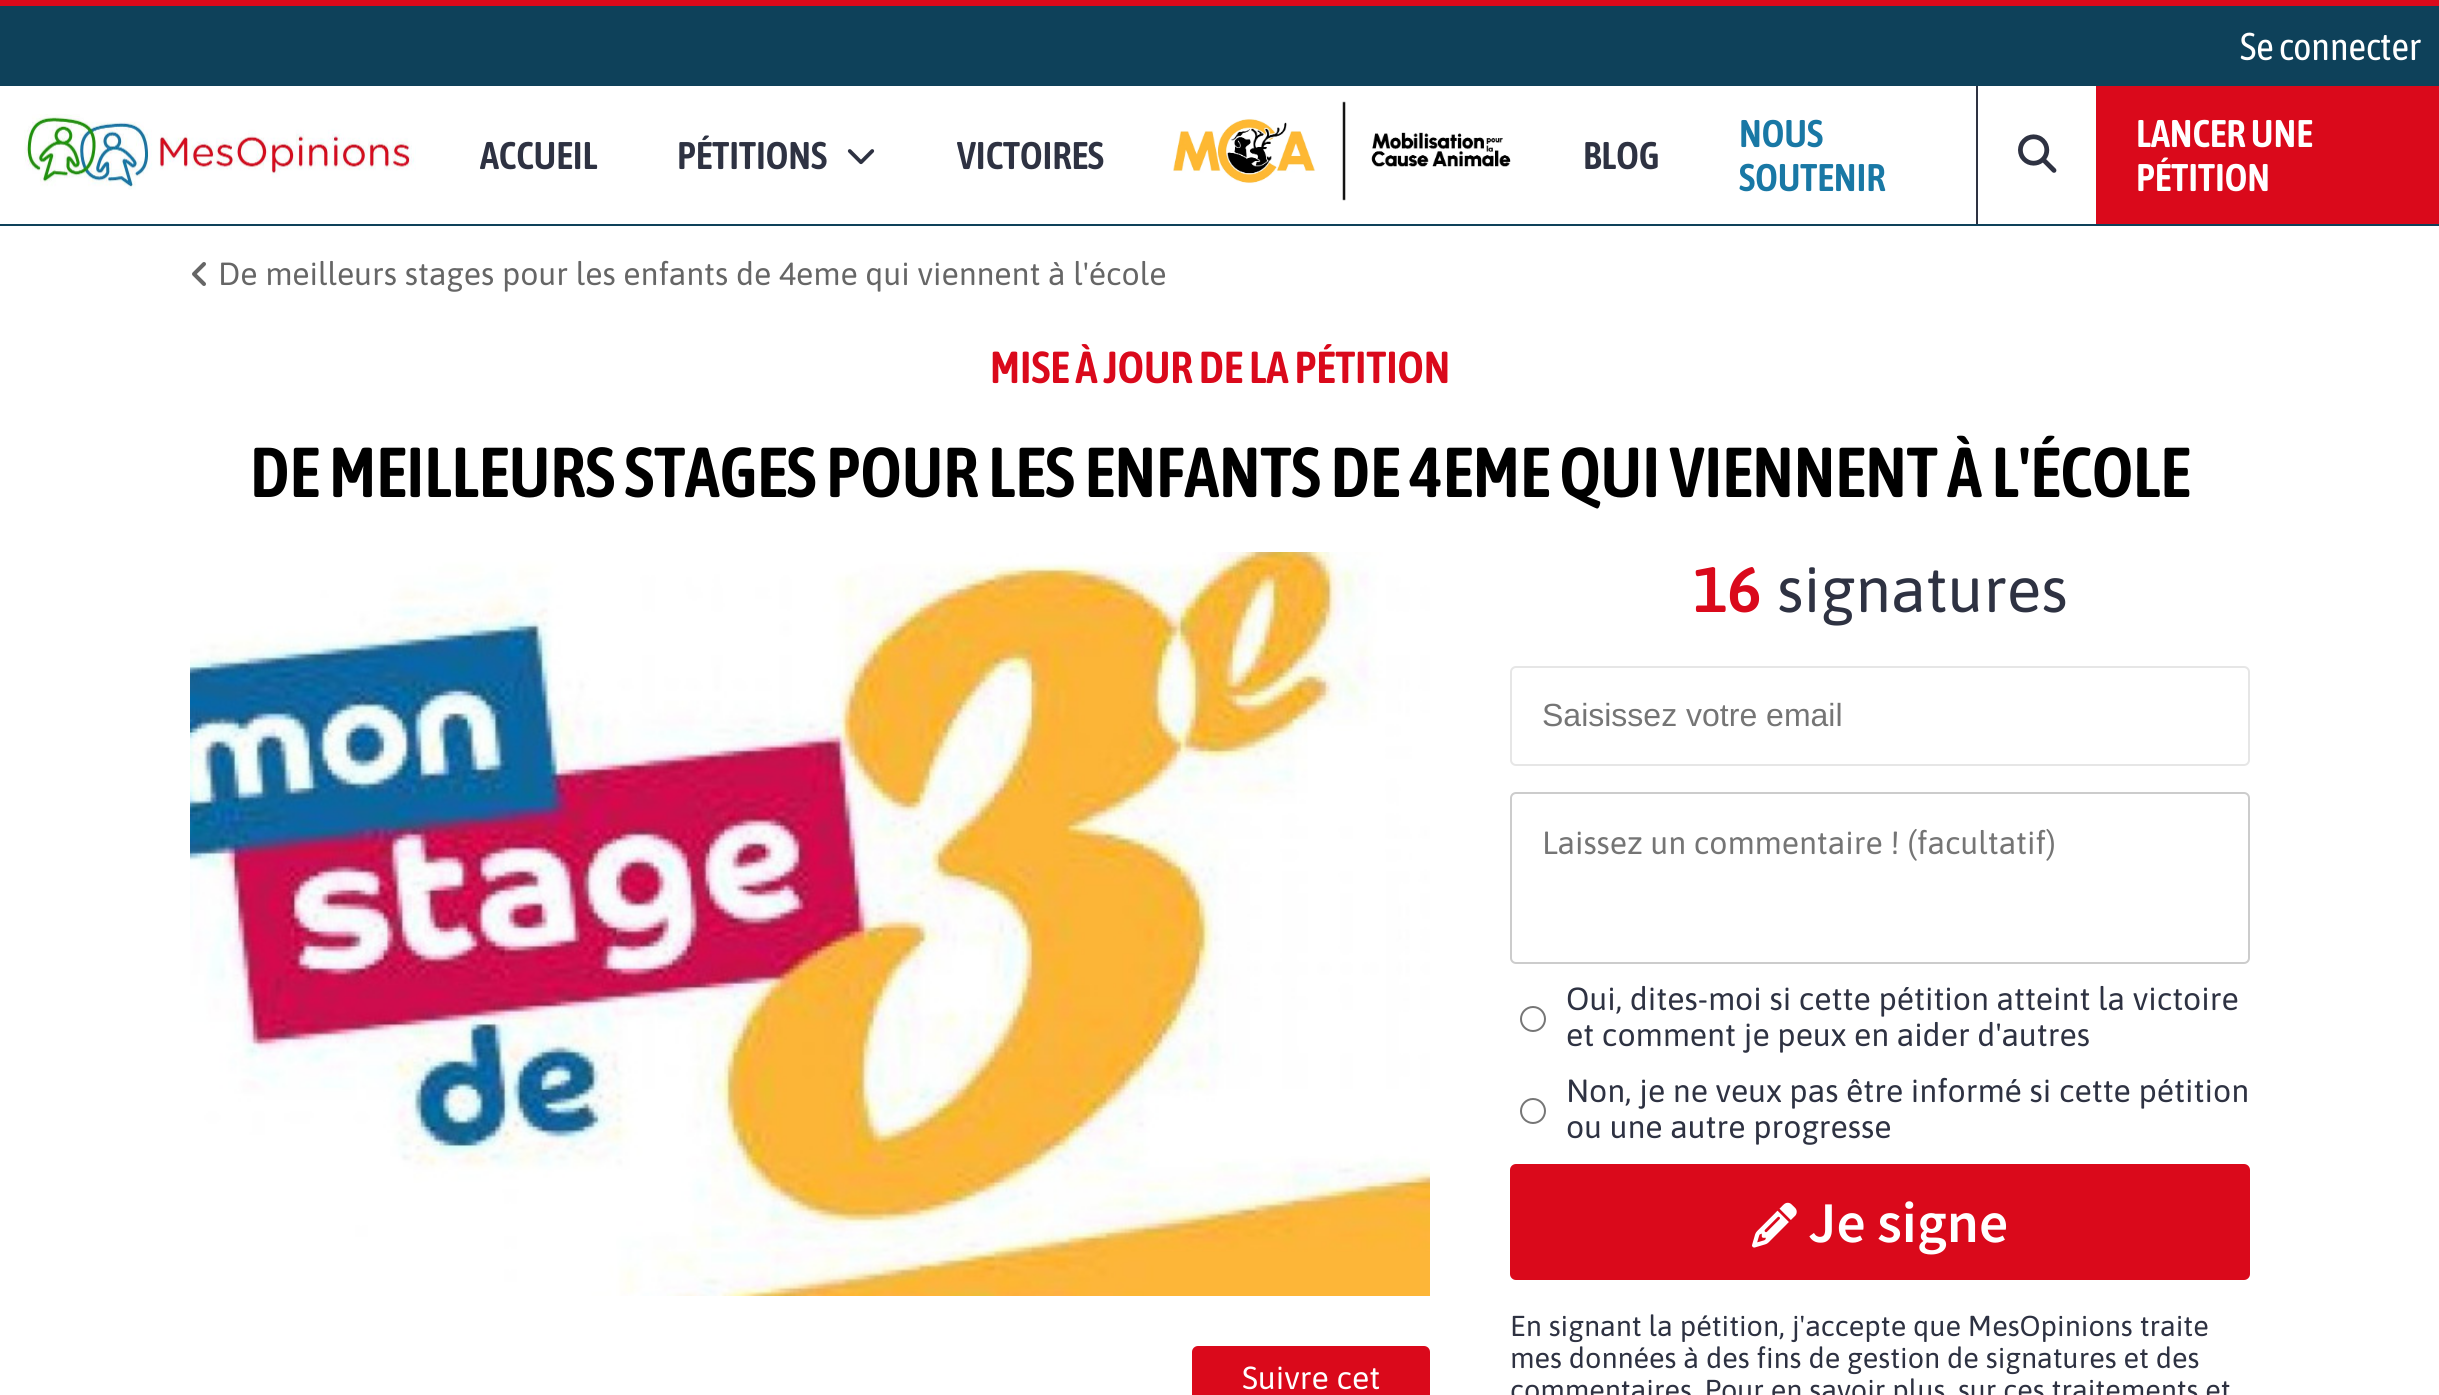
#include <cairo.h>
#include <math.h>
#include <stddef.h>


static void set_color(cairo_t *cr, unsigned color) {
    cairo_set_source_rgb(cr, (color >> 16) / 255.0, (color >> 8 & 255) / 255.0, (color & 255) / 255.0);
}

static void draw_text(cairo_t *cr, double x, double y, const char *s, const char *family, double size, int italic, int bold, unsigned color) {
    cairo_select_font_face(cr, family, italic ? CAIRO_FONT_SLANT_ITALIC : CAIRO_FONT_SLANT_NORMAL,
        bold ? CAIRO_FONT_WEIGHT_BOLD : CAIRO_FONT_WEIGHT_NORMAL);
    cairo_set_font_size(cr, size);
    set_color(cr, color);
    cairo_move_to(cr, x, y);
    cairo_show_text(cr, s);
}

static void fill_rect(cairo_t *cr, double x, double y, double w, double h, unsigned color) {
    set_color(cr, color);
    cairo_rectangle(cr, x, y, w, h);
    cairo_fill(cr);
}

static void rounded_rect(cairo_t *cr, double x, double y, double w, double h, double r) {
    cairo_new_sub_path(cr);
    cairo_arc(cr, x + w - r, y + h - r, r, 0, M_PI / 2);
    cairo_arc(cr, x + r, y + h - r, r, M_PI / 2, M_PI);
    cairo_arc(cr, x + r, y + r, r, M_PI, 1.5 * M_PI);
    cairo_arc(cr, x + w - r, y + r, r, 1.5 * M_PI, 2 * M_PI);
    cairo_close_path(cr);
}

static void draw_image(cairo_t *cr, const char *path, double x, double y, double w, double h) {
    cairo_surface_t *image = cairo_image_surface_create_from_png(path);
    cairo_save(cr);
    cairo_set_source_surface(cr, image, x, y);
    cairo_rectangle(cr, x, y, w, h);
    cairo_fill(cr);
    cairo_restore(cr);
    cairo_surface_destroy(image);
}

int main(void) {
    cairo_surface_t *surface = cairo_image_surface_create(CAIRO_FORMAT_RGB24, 2439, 1395);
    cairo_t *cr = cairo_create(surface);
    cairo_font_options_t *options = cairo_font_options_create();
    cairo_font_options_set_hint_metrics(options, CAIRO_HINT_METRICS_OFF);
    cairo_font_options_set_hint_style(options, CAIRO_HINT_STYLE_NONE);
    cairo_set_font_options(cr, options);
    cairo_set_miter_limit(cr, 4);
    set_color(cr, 0xFFFFFF);
    cairo_paint(cr);
    fill_rect(cr, 0, 6, 2439, 80, 0x0E415A);
    fill_rect(cr, 0, 0, 2439, 6, 0xDA091B);
    draw_text(cr, 2240, 60, "Se connecter", "Asap Condensed", 38.5, 0, 0, 0xFFFFFF);
    fill_rect(cr, 0, 224, 2439, 2, 0x0E415A);
    draw_image(cr, "assets/img1.png", 24, 114, 392, 76);
    draw_text(cr, 480, 169, "ACCUEIL", "Asap Condensed SemiBold", 38.5, 0, 0, 0x2E3242);
    draw_text(cr, 677, 169, "PÉTITIONS", "Asap Condensed SemiBold", 38.5, 0, 0, 0x2E3242);
    draw_image(cr, "assets/img2.png", 847, 149, 28, 16);
    draw_text(cr, 957, 169, "VICTOIRES", "Asap Condensed SemiBold", 38.5, 0, 0, 0x2E3242);
    draw_image(cr, "assets/img3.png", 1173, 101, 338, 100);
    draw_text(cr, 1583, 169, "BLOG", "Asap Condensed SemiBold", 38.5, 0, 0, 0x2E3242);
    draw_text(cr, 1739, 147, "NOUS", "Asap Condensed SemiBold", 38.5, 0, 0, 0x1978A5);
    draw_text(cr, 1739, 191, "SOUTENIR", "Asap Condensed SemiBold", 38.5, 0, 0, 0x1978A5);
    fill_rect(cr, 1976, 86, 2, 138, 0x2E3242);
    draw_image(cr, "assets/img4.png", 2018, 134, 39, 39);
    fill_rect(cr, 2096, 86, 343, 138, 0xDA091B);
    draw_text(cr, 2136, 147, "LANCER UNE", "Asap Condensed SemiBold", 38.5, 0, 0, 0xFFFFFF);
    draw_text(cr, 2136, 191, "PÉTITION", "Asap Condensed SemiBold", 38.5, 0, 0, 0xFFFFFF);
    draw_image(cr, "assets/img5.png", 192, 262, 14, 24);
    draw_text(cr, 218, 285, "De meilleurs stages pour les enfants de 4eme qui viennent à l'école", "Asap", 32, 0, 0, 0x666666);
    draw_text(cr, 990, 383, "MISE À JOUR DE LA PÉTITION", "Asap Condensed SemiBold", 44.75, 0, 0, 0xDA091B);
    draw_text(cr, 250, 497, "DE MEILLEURS STAGES POUR LES ENFANTS DE 4EME QUI VIENNENT À L'ÉCOLE", "Asap Condensed SemiBold", 70.4, 0, 0, 0x000000);
    draw_image(cr, "assets/img6.png", 190, 552, 1240, 744);
    set_color(cr, 0xDA091B);
    rounded_rect(cr, 1193, 1347, 236, 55, 5);
    cairo_fill_preserve(cr);
    cairo_stroke(cr);
    draw_text(cr, 1242, 1389, "Suivre cet", "Asap", 32, 0, 0, 0xFFFFFF);
    draw_text(cr, 1693, 612, "16", "Asap SemiBold", 64, 0, 0, 0xDA091B);
    draw_text(cr, 1777, 612, "signatures", "Asap", 64, 0, 0, 0x2E3242);
    rounded_rect(cr, 1511, 667, 738, 98, 5);
    set_color(cr, 0xE6E6E6);
    cairo_stroke(cr);
    draw_text(cr, 1542, 726, "Saisissez votre email", "Liberation Sans", 32, 0, 0, 0x757575);
    rounded_rect(cr, 1511, 793, 738, 170, 5);
    set_color(cr, 0xCCCCCC);
    cairo_stroke(cr);
    draw_text(cr, 1542, 854, "Laissez un commentaire ! (facultatif)", "Asap", 32, 0, 0, 0x757575);
    cairo_new_path(cr);
    cairo_arc(cr, 1533, 1019, 12, 0, 2 * M_PI);
    set_color(cr, 0x767676);
    cairo_stroke(cr);
    draw_text(cr, 1566, 1010, "Oui, dites-moi si cette pétition atteint la victoire", "Asap", 32, 0, 0, 0x2E3242);
    draw_text(cr, 1566, 1046, "et comment je peux en aider d'autres", "Asap", 32, 0, 0, 0x2E3242);
    cairo_new_path(cr);
    cairo_arc(cr, 1533, 1111, 12, 0, 2 * M_PI);
    set_color(cr, 0x767676);
    cairo_stroke(cr);
    draw_text(cr, 1566, 1102, "Non, je ne veux pas être informé si cette pétition", "Asap", 32, 0, 0, 0x2E3242);
    draw_text(cr, 1566, 1138, "ou une autre progresse", "Asap", 32, 0, 0, 0x2E3242);
    set_color(cr, 0xDA091B);
    rounded_rect(cr, 1511, 1165, 738, 114, 5);
    cairo_fill_preserve(cr);
    cairo_stroke(cr);
    draw_image(cr, "assets/img7.png", 1752, 1202, 45, 46);
    draw_text(cr, 1808, 1242, "Je signe", "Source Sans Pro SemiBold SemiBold", 57.5, 0, 0, 0xFFFFFF);
    draw_text(cr, 1510, 1336, "En signant la pétition, j'accepte que MesOpinions traite", "Asap", 28.8, 0, 0, 0x2E3242);
    draw_text(cr, 1510, 1368, "mes données à des fins de gestion de signatures et des", "Asap", 28.8, 0, 0, 0x2E3242);
    draw_text(cr, 1510, 1400, "commentaires. Pour en savoir plus, sur ces traitements et", "Asap", 28.8, 0, 0, 0x2E3242);
    cairo_surface_write_to_png(surface, "output.png");
    cairo_font_options_destroy(options);
    cairo_destroy(cr);
    cairo_surface_destroy(surface);
    return 0;
}
